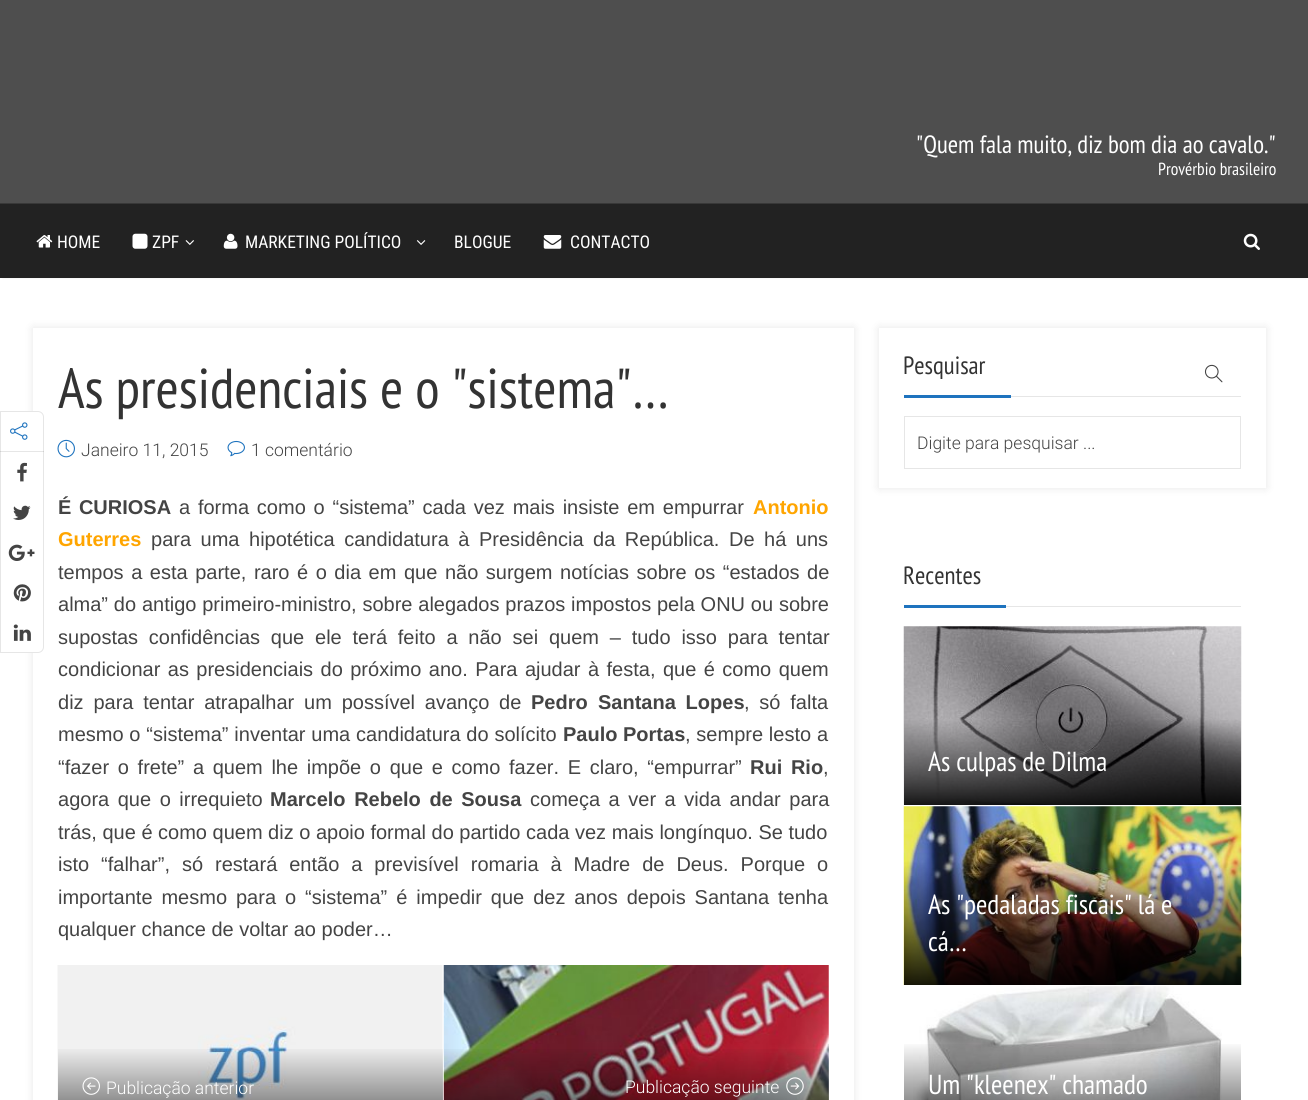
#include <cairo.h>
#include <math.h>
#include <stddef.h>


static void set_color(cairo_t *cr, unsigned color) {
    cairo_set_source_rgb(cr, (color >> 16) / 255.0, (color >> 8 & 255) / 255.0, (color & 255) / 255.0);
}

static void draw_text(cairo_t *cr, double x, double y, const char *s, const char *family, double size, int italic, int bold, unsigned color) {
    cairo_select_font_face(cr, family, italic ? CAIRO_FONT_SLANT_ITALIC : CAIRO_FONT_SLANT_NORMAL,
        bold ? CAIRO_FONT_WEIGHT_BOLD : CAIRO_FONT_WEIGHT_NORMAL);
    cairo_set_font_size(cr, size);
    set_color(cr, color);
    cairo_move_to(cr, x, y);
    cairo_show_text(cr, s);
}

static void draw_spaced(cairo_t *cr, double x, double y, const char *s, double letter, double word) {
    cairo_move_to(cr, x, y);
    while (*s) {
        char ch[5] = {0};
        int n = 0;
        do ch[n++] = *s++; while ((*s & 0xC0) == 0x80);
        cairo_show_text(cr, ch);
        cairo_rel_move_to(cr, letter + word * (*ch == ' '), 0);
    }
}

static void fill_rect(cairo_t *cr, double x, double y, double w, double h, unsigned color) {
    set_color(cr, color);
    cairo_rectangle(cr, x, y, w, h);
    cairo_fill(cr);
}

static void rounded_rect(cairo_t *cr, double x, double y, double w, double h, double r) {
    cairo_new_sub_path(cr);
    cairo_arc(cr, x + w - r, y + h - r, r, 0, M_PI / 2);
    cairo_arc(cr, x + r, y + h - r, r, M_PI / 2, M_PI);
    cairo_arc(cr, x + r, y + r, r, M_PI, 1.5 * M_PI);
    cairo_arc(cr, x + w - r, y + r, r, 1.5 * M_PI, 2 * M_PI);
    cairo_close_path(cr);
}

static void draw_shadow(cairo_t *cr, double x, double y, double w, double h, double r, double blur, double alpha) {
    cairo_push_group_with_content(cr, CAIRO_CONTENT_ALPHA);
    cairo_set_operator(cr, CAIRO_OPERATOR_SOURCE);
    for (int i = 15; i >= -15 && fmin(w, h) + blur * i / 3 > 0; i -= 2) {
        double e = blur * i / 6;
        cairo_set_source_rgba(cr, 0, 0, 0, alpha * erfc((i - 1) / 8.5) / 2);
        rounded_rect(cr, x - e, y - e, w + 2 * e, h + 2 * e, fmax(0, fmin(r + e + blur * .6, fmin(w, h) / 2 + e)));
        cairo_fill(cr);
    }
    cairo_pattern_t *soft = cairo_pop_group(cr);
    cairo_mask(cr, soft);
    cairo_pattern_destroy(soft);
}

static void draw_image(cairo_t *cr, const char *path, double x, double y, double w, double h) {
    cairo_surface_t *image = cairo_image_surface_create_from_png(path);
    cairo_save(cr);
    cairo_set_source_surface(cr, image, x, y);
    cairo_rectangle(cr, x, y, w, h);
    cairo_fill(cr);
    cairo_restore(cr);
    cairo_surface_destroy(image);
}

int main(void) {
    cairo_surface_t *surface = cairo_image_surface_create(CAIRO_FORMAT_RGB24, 1308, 1100);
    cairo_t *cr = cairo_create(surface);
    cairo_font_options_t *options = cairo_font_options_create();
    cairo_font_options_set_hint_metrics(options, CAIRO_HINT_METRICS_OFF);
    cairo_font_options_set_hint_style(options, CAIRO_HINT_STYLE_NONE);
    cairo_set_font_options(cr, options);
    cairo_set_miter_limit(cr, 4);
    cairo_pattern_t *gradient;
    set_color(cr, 0xFFFFFF);
    cairo_paint(cr);
    set_color(cr, 0x000000);
    draw_shadow(cr, 3, 5, 1303, 273, 0, 1, 0.1);
    fill_rect(cr, 0, 0, 1308, 203, 0x4E4E4E);
    draw_text(cr, 916, 153, "\"Quem fala muito, diz bom dia ao cavalo.\"", "PT Sans Narrow", 25, 0, 0, 0xFFFFFF);
    draw_text(cr, 1158, 175, "Provérbio brasileiro", "PT Sans Narrow", 17.5, 0, 0, 0xFFFFFF);
    fill_rect(cr, 0, 204, 1308, 74, 0x222222);
    fill_rect(cr, 0, 203, 1308, 1, 0x383838);
    draw_image(cr, "assets/img1.png", 36, 235, 17, 13);
    draw_text(cr, 57, 248, "HOME", "Roboto Condensed", 17.5, 0, 0, 0xFFFFFF);
    draw_image(cr, "assets/img2.png", 132, 233, 16, 16);
    draw_text(cr, 152, 248, "ZPF", "Roboto Condensed", 17.5, 0, 0, 0xFFFFFF);
    draw_image(cr, "assets/img3.png", 185, 240, 9, 5);
    draw_image(cr, "assets/img4.png", 223, 233, 15, 16);
    draw_text(cr, 245, 248, "MARKETING POLÍTICO", "Roboto Condensed", 17.5, 0, 0, 0xFFFFFF);
    draw_image(cr, "assets/img5.png", 416, 240, 10, 5);
    draw_text(cr, 454, 248, "BLOGUE", "Roboto Condensed", 17.5, 0, 0, 0xFFFFFF);
    draw_image(cr, "assets/img6.png", 543, 235, 19, 14);
    draw_text(cr, 570, 248, "CONTACTO", "Roboto Condensed", 17.5, 0, 0, 0xFFFFFF);
    draw_image(cr, "assets/img7.png", 1243, 233, 17, 17);
    set_color(cr, 0x000000);
    draw_shadow(cr, 33, 328, 821, 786, 0, 4.5, 0.1);
    fill_rect(cr, 33, 328, 821, 772, 0xFFFFFF);
    cairo_new_path(cr);
    cairo_move_to(cr, 0.5, 411.5);
    cairo_line_to(cr, 38, 411.5);
    cairo_curve_to(cr, 41, 411.5, 43.5, 414, 43.5, 417);
    cairo_line_to(cr, 43.5, 647);
    cairo_curve_to(cr, 43.5, 650, 41, 652.5, 38, 652.5);
    cairo_line_to(cr, 0.5, 652.5);
    cairo_close_path(cr);
    cairo_fill_preserve(cr);
    set_color(cr, 0xE6E6E6);
    cairo_set_line_width(cr, 1);
    cairo_stroke(cr);
    cairo_set_source_rgba(cr, 0, 0, 0, 0.1);
    cairo_rectangle(cr, 0, 451, 44, 1);
    cairo_fill(cr);
    draw_image(cr, "assets/img8.png", 10, 422, 18, 18);
    draw_image(cr, "assets/img9.png", 17, 462, 10, 20);
    draw_image(cr, "assets/img10.png", 13, 505, 18, 15);
    draw_image(cr, "assets/img11.png", 8, 544, 27, 17);
    draw_image(cr, "assets/img12.png", 13, 584, 18, 18);
    draw_image(cr, "assets/img13.png", 13, 624, 18, 17);
    draw_text(cr, 58, 408, "As presidenciais e o \"sistema\"…", "PT Sans Narrow", 56.25, 0, 0, 0x333333);
    draw_image(cr, "assets/img14.png", 57, 439, 18, 19);
    draw_text(cr, 81, 456, "Janeiro 11, 2015", "Roboto Light", 17.5, 0, 0, 0x444444);
    draw_image(cr, "assets/img15.png", 227, 440, 18, 17);
    draw_text(cr, 251, 456, "1 comentário", "Roboto Light", 17.5, 0, 0, 0x444444);
    cairo_select_font_face(cr, "Liberation Sans", CAIRO_FONT_SLANT_NORMAL, CAIRO_FONT_WEIGHT_BOLD);
    cairo_set_font_size(cr, 20);
    draw_spaced(cr, 58, 514, "É CURIOSA", 0, 2);
    cairo_select_font_face(cr, "Liberation Sans", CAIRO_FONT_SLANT_NORMAL, CAIRO_FONT_WEIGHT_NORMAL);
    draw_spaced(cr, 179, 514, "a forma como o “sistema” cada vez mais insiste em empurrar", 0, 2.25);
    draw_text(cr, 753, 514, "Antonio", "Liberation Sans", 20, 0, 1, 0xFFA500);
    draw_text(cr, 58, 546, "Guterres", "Liberation Sans", 20, 0, 1, 0xFFA500);
    cairo_select_font_face(cr, "Liberation Sans", CAIRO_FONT_SLANT_NORMAL, CAIRO_FONT_WEIGHT_NORMAL);
    set_color(cr, 0x444444);
    draw_spaced(cr, 151, 546, "para uma hipotética candidatura à Presidência da República. De há uns", 0, 4);
    draw_spaced(cr, 58, 579, "tempos a esta parte, raro é o dia em que não surgem notícias sobre os “estados de", 0, 2);
    draw_spaced(cr, 58, 611, "alma” do antigo primeiro-ministro, sobre alegados prazos impostos pela ONU ou sobre", 0, 0.25);
    draw_spaced(cr, 58, 644, "supostas confidências que ele terá feito a não sei quem – tudo isso para tentar", 0, 5.25);
    draw_spaced(cr, 58, 676, "condicionar as presidenciais do próximo ano. Para ajudar à festa, que é como quem", 0, 1.9);
    draw_spaced(cr, 58, 709, "diz para tentar atrapalhar um possível avanço de", 0, 4.25);
    draw_text(cr, 531, 709, "Pedro", "Liberation Sans", 20, 0, 1, 0x444444);
    draw_spaced(cr, 598, 709, "Santana Lopes", 0, 4.25);
    cairo_select_font_face(cr, "Liberation Sans", CAIRO_FONT_SLANT_NORMAL, CAIRO_FONT_WEIGHT_NORMAL);
    draw_spaced(cr, 744, 709, ", só falta", 0, 4.25);
    draw_spaced(cr, 58, 741, "mesmo o “sistema” inventar uma candidatura do solícito", 0, 0.25);
    draw_text(cr, 563, 741, "Paulo Portas", "Liberation Sans", 20, 0, 1, 0x444444);
    cairo_select_font_face(cr, "Liberation Sans", CAIRO_FONT_SLANT_NORMAL, CAIRO_FONT_WEIGHT_NORMAL);
    draw_spaced(cr, 685, 741, ", sempre lesto a", 0, 0.25);
    draw_spaced(cr, 58, 774, "“fazer o frete” a quem lhe impõe o que e como fazer. E claro, “empurrar”", 0, 3.1);
    cairo_select_font_face(cr, "Liberation Sans", CAIRO_FONT_SLANT_NORMAL, CAIRO_FONT_WEIGHT_BOLD);
    draw_spaced(cr, 750, 774, "Rui Rio", 0, 3.1);
    draw_text(cr, 823, 774, ",", "Liberation Sans", 20, 0, 0, 0x444444);
    draw_spaced(cr, 58, 806, "agora que o irrequieto", 0, 3);
    cairo_select_font_face(cr, "Liberation Sans", CAIRO_FONT_SLANT_NORMAL, CAIRO_FONT_WEIGHT_BOLD);
    draw_spaced(cr, 270, 806, "Marcelo Rebelo de Sousa", 0, 3);
    cairo_select_font_face(cr, "Liberation Sans", CAIRO_FONT_SLANT_NORMAL, CAIRO_FONT_WEIGHT_NORMAL);
    draw_spaced(cr, 530, 806, "começa a ver a vida andar para", 0, 3);
    draw_text(cr, 58, 839, "trás, que é como quem diz o apoio formal do partido cada vez mais longínquo. Se tudo", "Liberation Sans", 20, 0, 0, 0x444444);
    draw_spaced(cr, 58, 871, "isto “falhar”, só restará então a previsível romaria à Madre de Deus. Porque o", 0, 6.4);
    draw_spaced(cr, 58, 904, "importante mesmo para o “sistema” é impedir que dez anos depois Santana tenha", 0, 3.4);
    draw_text(cr, 58, 936, "qualquer chance de voltar ao poder…", "Liberation Sans", 20, 0, 0, 0x444444);
    draw_image(cr, "assets/img16.png", 57, 965, 386, 135);
    gradient = cairo_pattern_create_linear(250, 1046, 250, 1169);
    cairo_pattern_add_color_stop_rgba(gradient, 0, 0, 0, 0, 0);
    cairo_pattern_add_color_stop_rgba(gradient, 1, 0, 0, 0, 0.9);
    cairo_set_source(cr, gradient);
    cairo_pattern_destroy(gradient);
    cairo_rectangle(cr, 58, 1049, 385, 51);
    cairo_fill(cr);
    draw_image(cr, "assets/img17.png", 82, 1077, 18, 18);
    draw_text(cr, 106, 1094, "Publicação anterior", "Roboto Light", 17.5, 0, 0, 0xFFFFFF);
    draw_image(cr, "assets/img18.png", 443, 965, 386, 135);
    gradient = cairo_pattern_create_linear(636, 1046, 636, 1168);
    cairo_pattern_add_color_stop_rgba(gradient, 0, 0, 0, 0, 0);
    cairo_pattern_add_color_stop_rgba(gradient, 1, 0, 0, 0, 0.9);
    cairo_set_source(cr, gradient);
    cairo_pattern_destroy(gradient);
    cairo_rectangle(cr, 444, 1049, 385, 51);
    cairo_fill(cr);
    draw_text(cr, 625, 1093, "Publicação seguinte", "Roboto Light", 17.5, 0, 0, 0xFFFFFF);
    draw_image(cr, "assets/img19.png", 786, 1077, 18, 18);
    set_color(cr, 0x000000);
    draw_shadow(cr, 879, 328, 387, 160, 0, 4.5, 0.1);
    fill_rect(cr, 879, 328, 387, 160, 0xFFFFFF);
    fill_rect(cr, 1011, 396, 230, 1, 0xE6E6E6);
    fill_rect(cr, 904, 395, 107, 3, 0x1E73BE);
    draw_text(cr, 903, 374, "Pesquisar", "PT Sans Narrow", 25, 0, 0, 0x333333);
    draw_image(cr, "assets/img20.png", 1204, 364, 19, 19);
    cairo_rectangle(cr, 904.5, 416.5, 336, 52);
    set_color(cr, 0xE6E6E6);
    cairo_stroke(cr);
    draw_text(cr, 917, 449, "Digite para pesquisar ...", "Roboto Light", 17.5, 0, 0, 0x444444);
    fill_rect(cr, 1006, 606, 235, 1, 0xE6E6E6);
    fill_rect(cr, 904, 605, 102, 3, 0x1E73BE);
    draw_text(cr, 903, 584, "Recentes", "PT Sans Narrow", 25, 0, 0, 0x333333);
    draw_image(cr, "assets/img21.png", 903, 626, 339, 179);
    draw_text(cr, 928, 771, "As culpas de Dilma", "PT Sans Narrow", 27.5, 0, 0, 0xFFFFFF);
    draw_image(cr, "assets/img22.png", 903, 806, 339, 179);
    draw_text(cr, 928, 914, "As \"pedaladas fiscais\" lá e", "PT Sans Narrow", 27.5, 0, 0, 0xFFFFFF);
    draw_text(cr, 928, 951, "cá…", "PT Sans Narrow", 27.5, 0, 0, 0xFFFFFF);
    draw_image(cr, "assets/img23.png", 913, 986, 309, 114);
    gradient = cairo_pattern_create_linear(1073, 1041, 1073, 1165);
    cairo_pattern_add_color_stop_rgba(gradient, 0, 0, 0, 0, 0);
    cairo_pattern_add_color_stop_rgba(gradient, 1, 0, 0, 0, 0.9);
    cairo_set_source(cr, gradient);
    cairo_pattern_destroy(gradient);
    cairo_rectangle(cr, 904, 1044, 337, 56);
    cairo_fill(cr);
    draw_text(cr, 928, 1094, "Um \"kleenex\" chamado", "PT Sans Narrow", 27.5, 0, 0, 0xFFFFFF);
    cairo_surface_write_to_png(surface, "output.png");
    cairo_font_options_destroy(options);
    cairo_destroy(cr);
    cairo_surface_destroy(surface);
    return 0;
}
